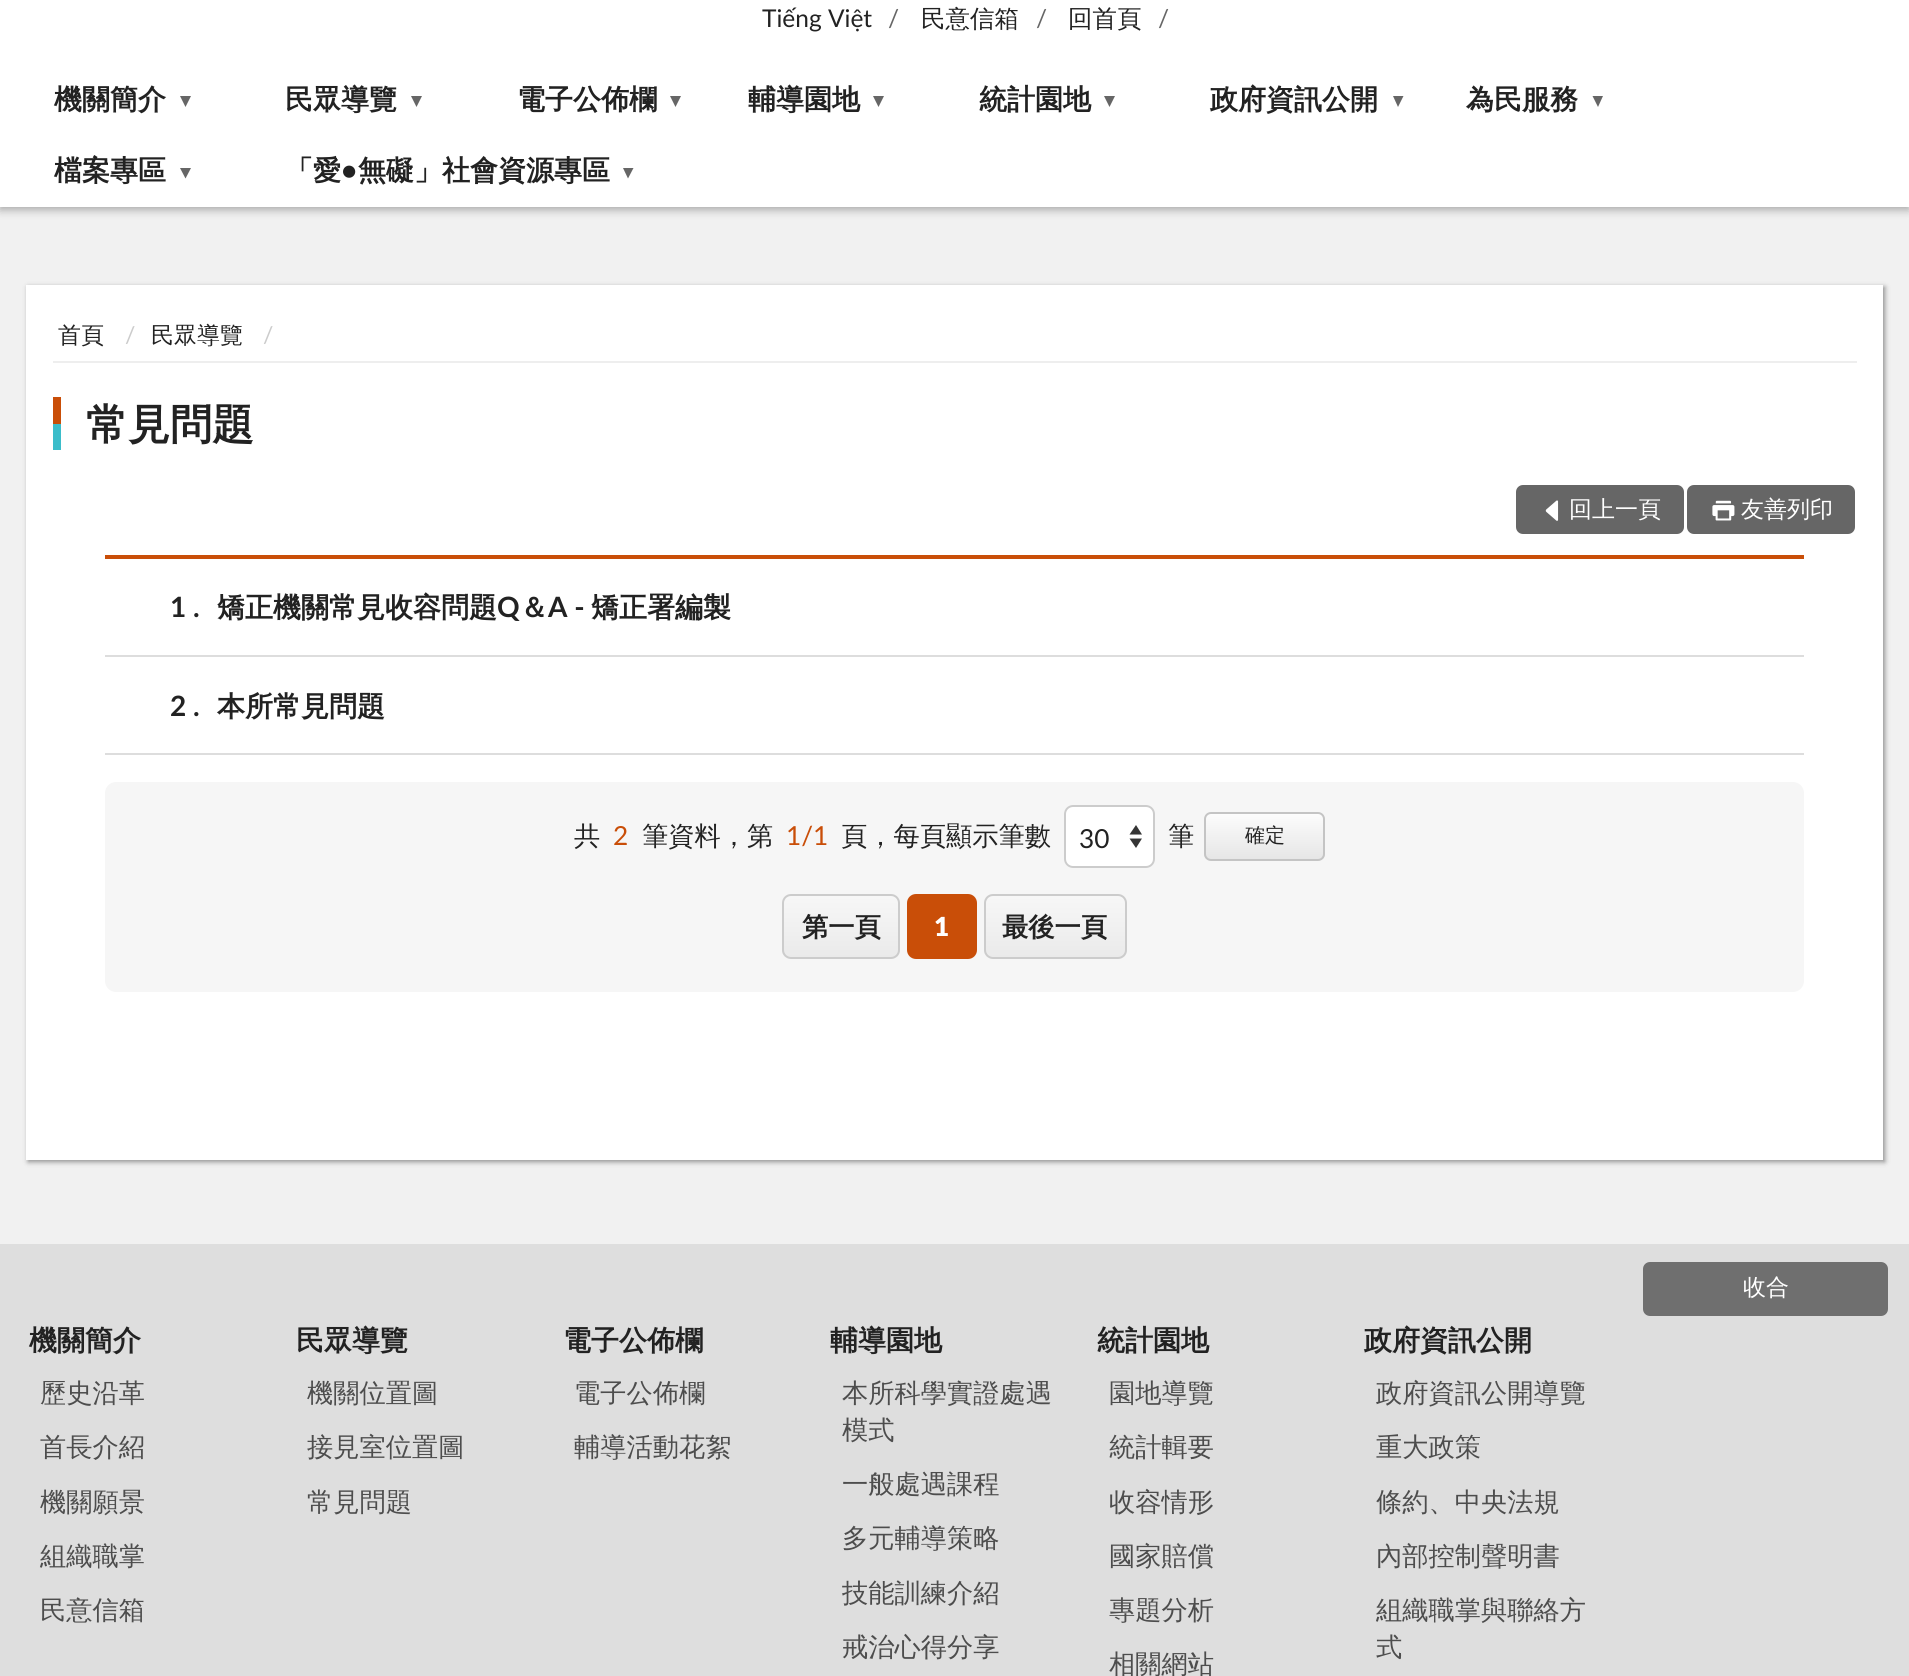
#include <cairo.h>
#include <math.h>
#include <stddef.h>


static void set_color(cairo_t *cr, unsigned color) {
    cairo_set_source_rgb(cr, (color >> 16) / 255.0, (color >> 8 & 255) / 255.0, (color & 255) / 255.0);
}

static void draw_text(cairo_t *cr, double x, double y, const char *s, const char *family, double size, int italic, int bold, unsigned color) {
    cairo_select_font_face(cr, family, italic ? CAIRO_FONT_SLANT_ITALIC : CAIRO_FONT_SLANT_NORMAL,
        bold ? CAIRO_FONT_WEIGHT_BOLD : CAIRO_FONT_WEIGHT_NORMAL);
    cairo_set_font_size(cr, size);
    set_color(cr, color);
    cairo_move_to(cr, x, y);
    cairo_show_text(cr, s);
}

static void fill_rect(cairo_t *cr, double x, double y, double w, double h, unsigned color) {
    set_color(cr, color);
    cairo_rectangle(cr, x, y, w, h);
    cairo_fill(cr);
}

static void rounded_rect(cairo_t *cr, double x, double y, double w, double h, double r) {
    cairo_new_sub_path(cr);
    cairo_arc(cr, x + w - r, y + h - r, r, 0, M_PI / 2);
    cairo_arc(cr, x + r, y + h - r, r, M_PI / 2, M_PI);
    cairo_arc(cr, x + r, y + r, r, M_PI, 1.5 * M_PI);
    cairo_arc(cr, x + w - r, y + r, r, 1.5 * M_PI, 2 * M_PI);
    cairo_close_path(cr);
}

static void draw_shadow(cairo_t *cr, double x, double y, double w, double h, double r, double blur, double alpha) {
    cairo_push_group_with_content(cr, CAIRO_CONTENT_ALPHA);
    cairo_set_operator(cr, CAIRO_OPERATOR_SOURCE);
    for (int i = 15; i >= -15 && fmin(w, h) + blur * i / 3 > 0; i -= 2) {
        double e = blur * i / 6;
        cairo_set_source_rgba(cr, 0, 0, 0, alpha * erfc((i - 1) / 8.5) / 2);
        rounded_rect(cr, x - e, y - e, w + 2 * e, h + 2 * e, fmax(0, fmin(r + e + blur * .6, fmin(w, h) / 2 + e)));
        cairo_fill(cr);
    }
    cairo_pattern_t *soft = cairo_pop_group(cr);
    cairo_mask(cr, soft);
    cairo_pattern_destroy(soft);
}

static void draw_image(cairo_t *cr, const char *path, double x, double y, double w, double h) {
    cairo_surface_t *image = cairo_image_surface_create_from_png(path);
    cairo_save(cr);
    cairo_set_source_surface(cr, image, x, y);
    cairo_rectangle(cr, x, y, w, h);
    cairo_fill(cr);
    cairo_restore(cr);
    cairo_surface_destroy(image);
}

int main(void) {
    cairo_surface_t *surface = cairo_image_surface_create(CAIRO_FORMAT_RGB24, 1909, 1676);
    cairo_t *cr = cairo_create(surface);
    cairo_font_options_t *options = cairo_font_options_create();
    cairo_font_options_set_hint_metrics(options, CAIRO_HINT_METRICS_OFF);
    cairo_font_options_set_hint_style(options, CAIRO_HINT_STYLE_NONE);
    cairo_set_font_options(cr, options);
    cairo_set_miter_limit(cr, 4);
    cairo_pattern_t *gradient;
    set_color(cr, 0xF1F1F1);
    cairo_paint(cr);
    set_color(cr, 0x000000);
    draw_shadow(cr, 0, -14, 1909, 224, 0, 4.5, 0.3);
    fill_rect(cr, 0, 0, 1909, 207, 0xFFFFFF);
    draw_text(cr, 762, 27, "Tiếng Việt", "Lato", 24.5, 0, 0, 0x222222);
    draw_text(cr, 888, 27, "/", "Lato", 24.5, 0, 0, 0x666666);
    draw_text(cr, 921, 27, "民意信箱", "WenQuanYi Zen Hei Medium", 24.5, 0, 0, 0x222222);
    draw_text(cr, 1036, 27, "/", "Lato", 24.5, 0, 0, 0x666666);
    draw_text(cr, 1068, 27, "回首頁", "WenQuanYi Zen Hei Medium", 24.5, 0, 0, 0x222222);
    draw_text(cr, 1158, 27, "/", "Lato", 24.5, 0, 0, 0x666666);
    draw_text(cr, 54, 109, "機關簡介", "WenQuanYi Zen Hei", 28, 0, 1, 0x222222);
    set_color(cr, 0x666666);
    cairo_new_path(cr);
    cairo_move_to(cr, 180, 96);
    cairo_line_to(cr, 191, 96);
    cairo_line_to(cr, 185.5, 107);
    cairo_close_path(cr);
    cairo_fill(cr);
    draw_text(cr, 285, 109, "民眾導覽", "WenQuanYi Zen Hei", 28, 0, 1, 0x222222);
    set_color(cr, 0x666666);
    cairo_new_path(cr);
    cairo_move_to(cr, 411, 96);
    cairo_line_to(cr, 422, 96);
    cairo_line_to(cr, 416.5, 107);
    cairo_close_path(cr);
    cairo_fill(cr);
    draw_text(cr, 517, 109, "電子公佈欄", "WenQuanYi Zen Hei", 28, 0, 1, 0x222222);
    set_color(cr, 0x666666);
    cairo_new_path(cr);
    cairo_move_to(cr, 670, 96);
    cairo_line_to(cr, 681, 96);
    cairo_line_to(cr, 675.5, 107);
    cairo_close_path(cr);
    cairo_fill(cr);
    draw_text(cr, 748, 109, "輔導園地", "WenQuanYi Zen Hei", 28, 0, 1, 0x222222);
    set_color(cr, 0x666666);
    cairo_new_path(cr);
    cairo_move_to(cr, 873, 96);
    cairo_line_to(cr, 884, 96);
    cairo_line_to(cr, 878.5, 107);
    cairo_close_path(cr);
    cairo_fill(cr);
    draw_text(cr, 979, 109, "統計園地", "WenQuanYi Zen Hei", 28, 0, 1, 0x222222);
    set_color(cr, 0x666666);
    cairo_new_path(cr);
    cairo_move_to(cr, 1104, 96);
    cairo_line_to(cr, 1115, 96);
    cairo_line_to(cr, 1109.5, 107);
    cairo_close_path(cr);
    cairo_fill(cr);
    draw_text(cr, 1210, 109, "政府資訊公開", "WenQuanYi Zen Hei", 28, 0, 1, 0x222222);
    set_color(cr, 0x666666);
    cairo_new_path(cr);
    cairo_move_to(cr, 1393, 96);
    cairo_line_to(cr, 1403.5, 96);
    cairo_line_to(cr, 1398, 107);
    cairo_close_path(cr);
    cairo_fill(cr);
    draw_text(cr, 1466, 109, "為民服務", "WenQuanYi Zen Hei", 28, 0, 1, 0x222222);
    set_color(cr, 0x666666);
    cairo_new_path(cr);
    cairo_move_to(cr, 1592.5, 96);
    cairo_line_to(cr, 1603, 96);
    cairo_line_to(cr, 1598, 107);
    cairo_close_path(cr);
    cairo_fill(cr);
    draw_text(cr, 54, 180, "檔案專區", "WenQuanYi Zen Hei", 28, 0, 1, 0x222222);
    set_color(cr, 0x666666);
    cairo_new_path(cr);
    cairo_move_to(cr, 180, 168);
    cairo_line_to(cr, 191, 168);
    cairo_line_to(cr, 185.5, 178.5);
    cairo_close_path(cr);
    cairo_fill(cr);
    draw_text(cr, 285, 180, "「愛", "WenQuanYi Zen Hei", 28, 0, 1, 0x222222);
    draw_text(cr, 341, 180, "•", "Lato", 28, 0, 1, 0x222222);
    draw_text(cr, 358, 180, "無礙」社會資源專區", "WenQuanYi Zen Hei", 28, 0, 1, 0x222222);
    set_color(cr, 0x666666);
    cairo_new_path(cr);
    cairo_move_to(cr, 623, 168);
    cairo_line_to(cr, 633.5, 168);
    cairo_line_to(cr, 628, 178.5);
    cairo_close_path(cr);
    cairo_fill(cr);
    set_color(cr, 0x000000);
    draw_shadow(cr, 28, 287, 1857, 875, 0, 2.5, 0.4);
    fill_rect(cr, 26, 285, 1857, 875, 0xFFFFFF);
    fill_rect(cr, 53, 361, 1804, 2, 0xEEEEEE);
    draw_text(cr, 58, 343, "首頁", "WenQuanYi Zen Hei Medium", 23, 0, 0, 0x222222);
    draw_text(cr, 125, 343, "/", "Lato", 23, 0, 0, 0xCCCCCC);
    draw_text(cr, 151, 343, "民眾導覽", "WenQuanYi Zen Hei Medium", 23, 0, 0, 0x222222);
    draw_text(cr, 263, 343, "/", "Lato", 23, 0, 0, 0xCCCCCC);
    fill_rect(cr, 53, 397, 8, 27, 0xC94E08);
    draw_text(cr, 86, 439, "常見問題", "WenQuanYi Zen Hei", 42, 0, 1, 0x222222);
    fill_rect(cr, 53, 424, 8, 26, 0x3BBDCA);
    set_color(cr, 0x666666);
    rounded_rect(cr, 1516, 485, 168, 49, 7);
    cairo_fill(cr);
    draw_image(cr, "assets/img1.png", 1545, 500, 14, 21);
    draw_text(cr, 1569, 517, "回上一頁", "WenQuanYi Zen Hei Medium", 23, 0, 0, 0xFFFFFF);
    set_color(cr, 0x666666);
    rounded_rect(cr, 1687, 485, 168, 49, 7);
    cairo_fill(cr);
    draw_image(cr, "assets/img2.png", 1712, 500, 23, 21);
    draw_text(cr, 1741, 517, "友善列印", "WenQuanYi Zen Hei Medium", 23, 0, 0, 0xFFFFFF);
    fill_rect(cr, 105, 555, 1699, 4, 0xC94E08);
    fill_rect(cr, 105, 655, 1699, 2, 0xDDDDDD);
    draw_text(cr, 170, 617, "1 .", "Lato", 28, 0, 1, 0x222222);
    draw_text(cr, 217, 617, "矯正機關常見收容問題", "WenQuanYi Zen Hei", 28, 0, 1, 0x222222);
    draw_text(cr, 497, 617, "Q", "Lato", 28, 0, 1, 0x222222);
    draw_text(cr, 520, 617, "＆", "WenQuanYi Zen Hei", 28, 0, 1, 0x222222);
    draw_text(cr, 548, 617, "A -", "Lato", 28, 0, 1, 0x222222);
    draw_text(cr, 591, 617, "矯正署編製", "WenQuanYi Zen Hei", 28, 0, 1, 0x222222);
    fill_rect(cr, 105, 753, 1699, 2, 0xDDDDDD);
    draw_text(cr, 170, 716, "2 .", "Lato", 28, 0, 1, 0x222222);
    draw_text(cr, 217, 716, "本所常見問題", "WenQuanYi Zen Hei", 28, 0, 1, 0x222222);
    set_color(cr, 0xF6F6F6);
    rounded_rect(cr, 105, 782, 1699, 210, 11);
    cairo_fill(cr);
    draw_text(cr, 574, 845, "共", "WenQuanYi Zen Hei Medium", 26.25, 0, 0, 0x222222);
    draw_text(cr, 613, 845, "2", "Lato", 26.25, 0, 0, 0xC94E08);
    draw_text(cr, 642, 845, "筆資料，第", "WenQuanYi Zen Hei Medium", 26.25, 0, 0, 0x222222);
    draw_text(cr, 786, 845, "1/1", "Lato", 26.25, 0, 0, 0xC94E08);
    draw_text(cr, 841, 845, "頁，每頁顯示筆數", "WenQuanYi Zen Hei Medium", 26.25, 0, 0, 0x222222);
    set_color(cr, 0xFFFFFF);
    rounded_rect(cr, 1064, 805, 91, 63, 9);
    cairo_fill(cr);
    set_color(cr, 0x353535);
    cairo_new_path(cr);
    cairo_move_to(cr, 1136, 825);
    cairo_line_to(cr, 1129.5, 834.5);
    cairo_line_to(cr, 1142, 834.5);
    cairo_close_path(cr);
    cairo_move_to(cr, 1136, 848);
    cairo_line_to(cr, 1142, 838.5);
    cairo_line_to(cr, 1129.5, 838.5);
    cairo_close_path(cr);
    cairo_fill(cr);
    rounded_rect(cr, 1065, 806, 89, 61, 8);
    set_color(cr, 0xCCCCCC);
    cairo_stroke(cr);
    draw_text(cr, 1079, 848, "30", "Lato", 26.25, 0, 0, 0x222222);
    draw_text(cr, 1168, 845, "筆", "WenQuanYi Zen Hei Medium", 26.25, 0, 0, 0x222222);
    cairo_save(cr);
    rounded_rect(cr, 1204, 812, 121, 49, 7);
    cairo_clip(cr);
    gradient = cairo_pattern_create_linear(1264, 814, 1264, 859);
    cairo_pattern_add_color_stop_rgba(gradient, 0, 0.988, 0.988, 0.988, 1);
    cairo_pattern_add_color_stop_rgba(gradient, 1, 0.902, 0.902, 0.902, 1);
    cairo_set_source(cr, gradient);
    cairo_pattern_destroy(gradient);
    cairo_rectangle(cr, 1204, 814, 121, 45);
    cairo_fill(cr);
    cairo_restore(cr);
    rounded_rect(cr, 1205, 813, 119, 47, 6);
    set_color(cr, 0xC4C4C4);
    cairo_stroke(cr);
    draw_text(cr, 1245, 842, "確定", "WenQuanYi Zen Hei Medium", 20, 0, 0, 0x222222);
    cairo_save(cr);
    rounded_rect(cr, 782, 894, 118, 65, 9);
    cairo_clip(cr);
    gradient = cairo_pattern_create_linear(841, 896, 841, 957);
    cairo_pattern_add_color_stop_rgba(gradient, 0, 0.969, 0.969, 0.969, 1);
    cairo_pattern_add_color_stop_rgba(gradient, 1, 0.918, 0.918, 0.918, 1);
    cairo_set_source(cr, gradient);
    cairo_pattern_destroy(gradient);
    cairo_rectangle(cr, 782, 896, 118, 61);
    cairo_fill(cr);
    cairo_restore(cr);
    rounded_rect(cr, 783, 895, 116, 63, 8);
    set_color(cr, 0xCCCCCC);
    cairo_stroke(cr);
    draw_text(cr, 802, 936, "第一頁", "WenQuanYi Zen Hei", 26.25, 0, 1, 0x222222);
    set_color(cr, 0xC94E08);
    rounded_rect(cr, 908, 895, 68, 63, 8);
    cairo_fill_preserve(cr);
    cairo_stroke(cr);
    draw_text(cr, 934, 936, "1", "Lato ExtraBold", 26.25, 0, 0, 0xFFFFFF);
    cairo_save(cr);
    rounded_rect(cr, 984, 894, 143, 65, 9);
    cairo_clip(cr);
    gradient = cairo_pattern_create_linear(1055, 896, 1055, 957);
    cairo_pattern_add_color_stop_rgba(gradient, 0, 0.969, 0.969, 0.969, 1);
    cairo_pattern_add_color_stop_rgba(gradient, 1, 0.918, 0.918, 0.918, 1);
    cairo_set_source(cr, gradient);
    cairo_pattern_destroy(gradient);
    cairo_rectangle(cr, 984, 896, 143, 61);
    cairo_fill(cr);
    cairo_restore(cr);
    rounded_rect(cr, 985, 895, 141, 63, 8);
    set_color(cr, 0xCCCCCC);
    cairo_stroke(cr);
    draw_text(cr, 1002, 936, "最後一頁", "WenQuanYi Zen Hei", 26.25, 0, 1, 0x222222);
    fill_rect(cr, 0, 1244, 1909, 432, 0xDEDEDE);
    set_color(cr, 0x6F6F6F);
    rounded_rect(cr, 1643, 1262, 245, 54, 7);
    cairo_fill(cr);
    draw_text(cr, 1743, 1295, "收合", "WenQuanYi Zen Hei Medium", 23, 0, 0, 0xFFFFFF);
    draw_text(cr, 29, 1350, "機關簡介", "WenQuanYi Zen Hei", 28, 0, 1, 0x222222);
    draw_text(cr, 40, 1402, "歷史沿革", "WenQuanYi Zen Hei Medium", 26.25, 0, 0, 0x4D4D4D);
    draw_text(cr, 40, 1456, "首長介紹", "WenQuanYi Zen Hei Medium", 26.25, 0, 0, 0x4D4D4D);
    draw_text(cr, 40, 1511, "機關願景", "WenQuanYi Zen Hei Medium", 26.25, 0, 0, 0x4D4D4D);
    draw_text(cr, 40, 1565, "組織職掌", "WenQuanYi Zen Hei Medium", 26.25, 0, 0, 0x4D4D4D);
    draw_text(cr, 40, 1619, "民意信箱", "WenQuanYi Zen Hei Medium", 26.25, 0, 0, 0x4D4D4D);
    draw_text(cr, 296, 1350, "民眾導覽", "WenQuanYi Zen Hei", 28, 0, 1, 0x222222);
    draw_text(cr, 307, 1402, "機關位置圖", "WenQuanYi Zen Hei Medium", 26.25, 0, 0, 0x4D4D4D);
    draw_text(cr, 307, 1456, "接見室位置圖", "WenQuanYi Zen Hei Medium", 26.25, 0, 0, 0x4D4D4D);
    draw_text(cr, 307, 1511, "常見問題", "WenQuanYi Zen Hei Medium", 26.25, 0, 0, 0x4D4D4D);
    draw_text(cr, 563, 1350, "電子公佈欄", "WenQuanYi Zen Hei", 28, 0, 1, 0x222222);
    draw_text(cr, 574, 1402, "電子公佈欄", "WenQuanYi Zen Hei Medium", 26.25, 0, 0, 0x4D4D4D);
    draw_text(cr, 574, 1456, "輔導活動花絮", "WenQuanYi Zen Hei Medium", 26.25, 0, 0, 0x4D4D4D);
    draw_text(cr, 830, 1350, "輔導園地", "WenQuanYi Zen Hei", 28, 0, 1, 0x222222);
    draw_text(cr, 842, 1402, "本所科學實證處遇", "WenQuanYi Zen Hei Medium", 26.25, 0, 0, 0x4D4D4D);
    draw_text(cr, 842, 1439, "模式", "WenQuanYi Zen Hei Medium", 26.25, 0, 0, 0x4D4D4D);
    draw_text(cr, 842, 1493, "一般處遇課程", "WenQuanYi Zen Hei Medium", 26.25, 0, 0, 0x4D4D4D);
    draw_text(cr, 842, 1547, "多元輔導策略", "WenQuanYi Zen Hei Medium", 26.25, 0, 0, 0x4D4D4D);
    draw_text(cr, 842, 1602, "技能訓練介紹", "WenQuanYi Zen Hei Medium", 26.25, 0, 0, 0x4D4D4D);
    draw_text(cr, 842, 1656, "戒治心得分享", "WenQuanYi Zen Hei Medium", 26.25, 0, 0, 0x4D4D4D);
    draw_text(cr, 1097, 1350, "統計園地", "WenQuanYi Zen Hei", 28, 0, 1, 0x222222);
    draw_text(cr, 1109, 1402, "園地導覽", "WenQuanYi Zen Hei Medium", 26.25, 0, 0, 0x4D4D4D);
    draw_text(cr, 1109, 1456, "統計輯要", "WenQuanYi Zen Hei Medium", 26.25, 0, 0, 0x4D4D4D);
    draw_text(cr, 1109, 1511, "收容情形", "WenQuanYi Zen Hei Medium", 26.25, 0, 0, 0x4D4D4D);
    draw_text(cr, 1109, 1565, "國家賠償", "WenQuanYi Zen Hei Medium", 26.25, 0, 0, 0x4D4D4D);
    draw_text(cr, 1109, 1619, "專題分析", "WenQuanYi Zen Hei Medium", 26.25, 0, 0, 0x4D4D4D);
    draw_text(cr, 1109, 1673, "相關網站", "WenQuanYi Zen Hei Medium", 26.25, 0, 0, 0x4D4D4D);
    draw_text(cr, 1364, 1350, "政府資訊公開", "WenQuanYi Zen Hei", 28, 0, 1, 0x222222);
    draw_text(cr, 1376, 1402, "政府資訊公開導覽", "WenQuanYi Zen Hei Medium", 26.25, 0, 0, 0x4D4D4D);
    draw_text(cr, 1376, 1456, "重大政策", "WenQuanYi Zen Hei Medium", 26.25, 0, 0, 0x4D4D4D);
    draw_text(cr, 1376, 1511, "條約、中央法規", "WenQuanYi Zen Hei Medium", 26.25, 0, 0, 0x4D4D4D);
    draw_text(cr, 1376, 1565, "內部控制聲明書", "WenQuanYi Zen Hei Medium", 26.25, 0, 0, 0x4D4D4D);
    draw_text(cr, 1376, 1619, "組織職掌與聯絡方", "WenQuanYi Zen Hei Medium", 26.25, 0, 0, 0x4D4D4D);
    draw_text(cr, 1376, 1656, "式", "WenQuanYi Zen Hei Medium", 26.25, 0, 0, 0x4D4D4D);
    cairo_surface_write_to_png(surface, "output.png");
    cairo_font_options_destroy(options);
    cairo_destroy(cr);
    cairo_surface_destroy(surface);
    return 0;
}
